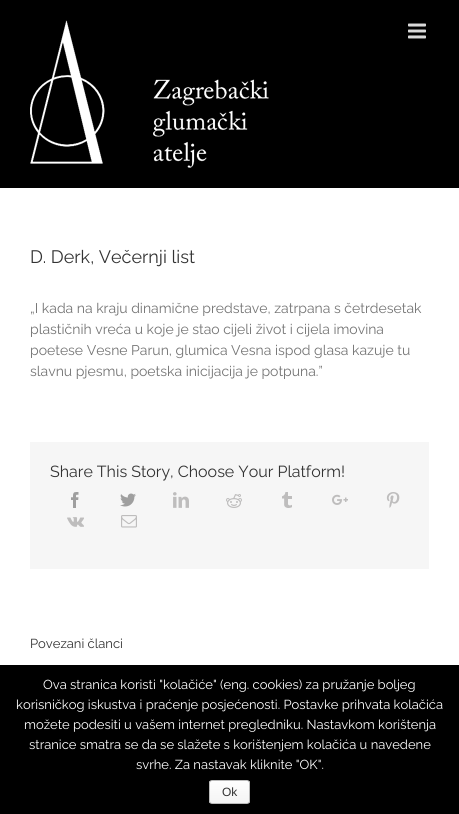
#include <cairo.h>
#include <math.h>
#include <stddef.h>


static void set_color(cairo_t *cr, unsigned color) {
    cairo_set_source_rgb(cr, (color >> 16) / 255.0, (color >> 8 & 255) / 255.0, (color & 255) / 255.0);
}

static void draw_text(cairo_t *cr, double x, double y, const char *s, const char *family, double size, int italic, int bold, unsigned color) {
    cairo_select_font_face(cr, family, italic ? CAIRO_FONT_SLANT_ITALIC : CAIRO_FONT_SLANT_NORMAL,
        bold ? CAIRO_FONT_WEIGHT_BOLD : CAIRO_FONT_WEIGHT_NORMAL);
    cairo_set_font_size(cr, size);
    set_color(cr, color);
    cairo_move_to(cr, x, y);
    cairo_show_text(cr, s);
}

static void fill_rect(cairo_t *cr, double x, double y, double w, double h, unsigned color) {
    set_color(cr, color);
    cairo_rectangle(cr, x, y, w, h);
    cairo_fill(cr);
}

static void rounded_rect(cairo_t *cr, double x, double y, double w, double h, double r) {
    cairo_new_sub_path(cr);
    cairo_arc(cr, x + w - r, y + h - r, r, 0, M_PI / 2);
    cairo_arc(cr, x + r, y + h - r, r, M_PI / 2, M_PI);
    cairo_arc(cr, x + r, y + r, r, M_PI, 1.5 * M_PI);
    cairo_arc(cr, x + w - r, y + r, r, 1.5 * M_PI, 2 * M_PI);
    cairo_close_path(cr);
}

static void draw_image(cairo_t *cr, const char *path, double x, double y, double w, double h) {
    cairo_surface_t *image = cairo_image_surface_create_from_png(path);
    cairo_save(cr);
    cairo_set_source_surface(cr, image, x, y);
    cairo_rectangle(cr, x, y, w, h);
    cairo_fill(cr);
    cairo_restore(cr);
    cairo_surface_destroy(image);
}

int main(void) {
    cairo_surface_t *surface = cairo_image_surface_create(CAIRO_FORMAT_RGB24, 459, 814);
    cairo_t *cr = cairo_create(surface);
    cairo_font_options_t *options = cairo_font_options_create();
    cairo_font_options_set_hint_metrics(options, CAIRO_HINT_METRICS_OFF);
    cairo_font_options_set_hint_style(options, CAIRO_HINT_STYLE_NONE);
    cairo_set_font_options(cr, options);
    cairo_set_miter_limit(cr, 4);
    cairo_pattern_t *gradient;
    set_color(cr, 0xFFFFFF);
    cairo_paint(cr);
    fill_rect(cr, 0, 0, 459, 188, 0x000000);
    draw_image(cr, "assets/img1.png", 30, 20, 239, 148);
    draw_image(cr, "assets/img2.png", 408, 23, 18, 16);
    draw_text(cr, 30, 263, "D. Derk, Večernji list", "Raleway Thin", 18, 0, 0, 0x333333);
    draw_text(cr, 30, 313, "„I kada na kraju dinamične predstave, zatrpana s četrdesetak", "Raleway Thin", 14, 0, 0, 0x747474);
    draw_text(cr, 30, 334, "plastičnih vreća u koje je stao cijeli život i cijela imovina", "Raleway Thin", 14, 0, 0, 0x747474);
    draw_text(cr, 30, 355, "poetese Vesne Parun, glumica Vesna ispod glasa kazuje tu", "Raleway Thin", 14, 0, 0, 0x747474);
    draw_text(cr, 30, 376, "slavnu pjesmu, poetska inicijacija je potpuna.”", "Raleway Thin", 14, 0, 0, 0x747474);
    fill_rect(cr, 30, 442, 399, 127, 0xF6F6F6);
    draw_text(cr, 50, 477, "Share This Story, Choose Your Platform!", "Raleway Thin", 16, 0, 0, 0x333333);
    draw_image(cr, "assets/img3.png", 71, 492, 8, 16);
    draw_image(cr, "assets/img4.png", 120, 493, 16, 14);
    draw_image(cr, "assets/img5.png", 173, 492, 16, 16);
    draw_image(cr, "assets/img6.png", 226, 494, 16, 14);
    draw_image(cr, "assets/img7.png", 282, 492, 10, 16);
    draw_image(cr, "assets/img8.png", 332, 494, 16, 11);
    draw_image(cr, "assets/img9.png", 386, 492, 14, 16);
    draw_image(cr, "assets/img10.png", 67, 517, 17, 10);
    draw_image(cr, "assets/img11.png", 121, 515, 16, 13);
    draw_text(cr, 30, 648, "Povezani članci", "Raleway Thin", 13, 0, 0, 0x333333);
    fill_rect(cr, 0, 665, 459, 149, 0x000000);
    draw_text(cr, 43, 689, "Ova stranica koristi \"kolačiće\" (eng. cookies) za pružanje boljeg", "Raleway Thin", 13, 0, 0, 0xFFFFFF);
    draw_text(cr, 16, 709, "korisničkog iskustva i praćenje posjećenosti. Postavke prihvata kolačića", "Raleway Thin", 13, 0, 0, 0xFFFFFF);
    draw_text(cr, 24, 729, "možete podesiti u vašem internet pregledniku. Nastavkom korištenja", "Raleway Thin", 13, 0, 0, 0xFFFFFF);
    draw_text(cr, 29, 749, "stranice smatra se da se slažete s korištenjem kolačića u navedene", "Raleway Thin", 13, 0, 0, 0xFFFFFF);
    draw_text(cr, 136, 769, "svrhe. Za nastavak kliknite \"OK\".", "Raleway Thin", 13, 0, 0, 0xFFFFFF);
    cairo_save(cr);
    rounded_rect(cr, 209, 780, 41, 24, 3);
    cairo_clip(cr);
    gradient = cairo_pattern_create_linear(230, 781, 230, 803);
    cairo_pattern_add_color_stop_rgba(gradient, 0, 0.996, 0.996, 0.996, 1);
    cairo_pattern_add_color_stop_rgba(gradient, 1, 0.957, 0.957, 0.957, 1);
    cairo_set_source(cr, gradient);
    cairo_pattern_destroy(gradient);
    cairo_rectangle(cr, 209, 781, 41, 22);
    cairo_fill(cr);
    cairo_restore(cr);
    rounded_rect(cr, 209.5, 780.5, 40, 23, 2.5);
    set_color(cr, 0xBBBBBB);
    cairo_set_line_width(cr, 1);
    cairo_stroke(cr);
    draw_text(cr, 222, 796, "Ok", "Liberation Sans", 12, 0, 0, 0x333333);
    cairo_surface_write_to_png(surface, "output.png");
    cairo_font_options_destroy(options);
    cairo_destroy(cr);
    cairo_surface_destroy(surface);
    return 0;
}
